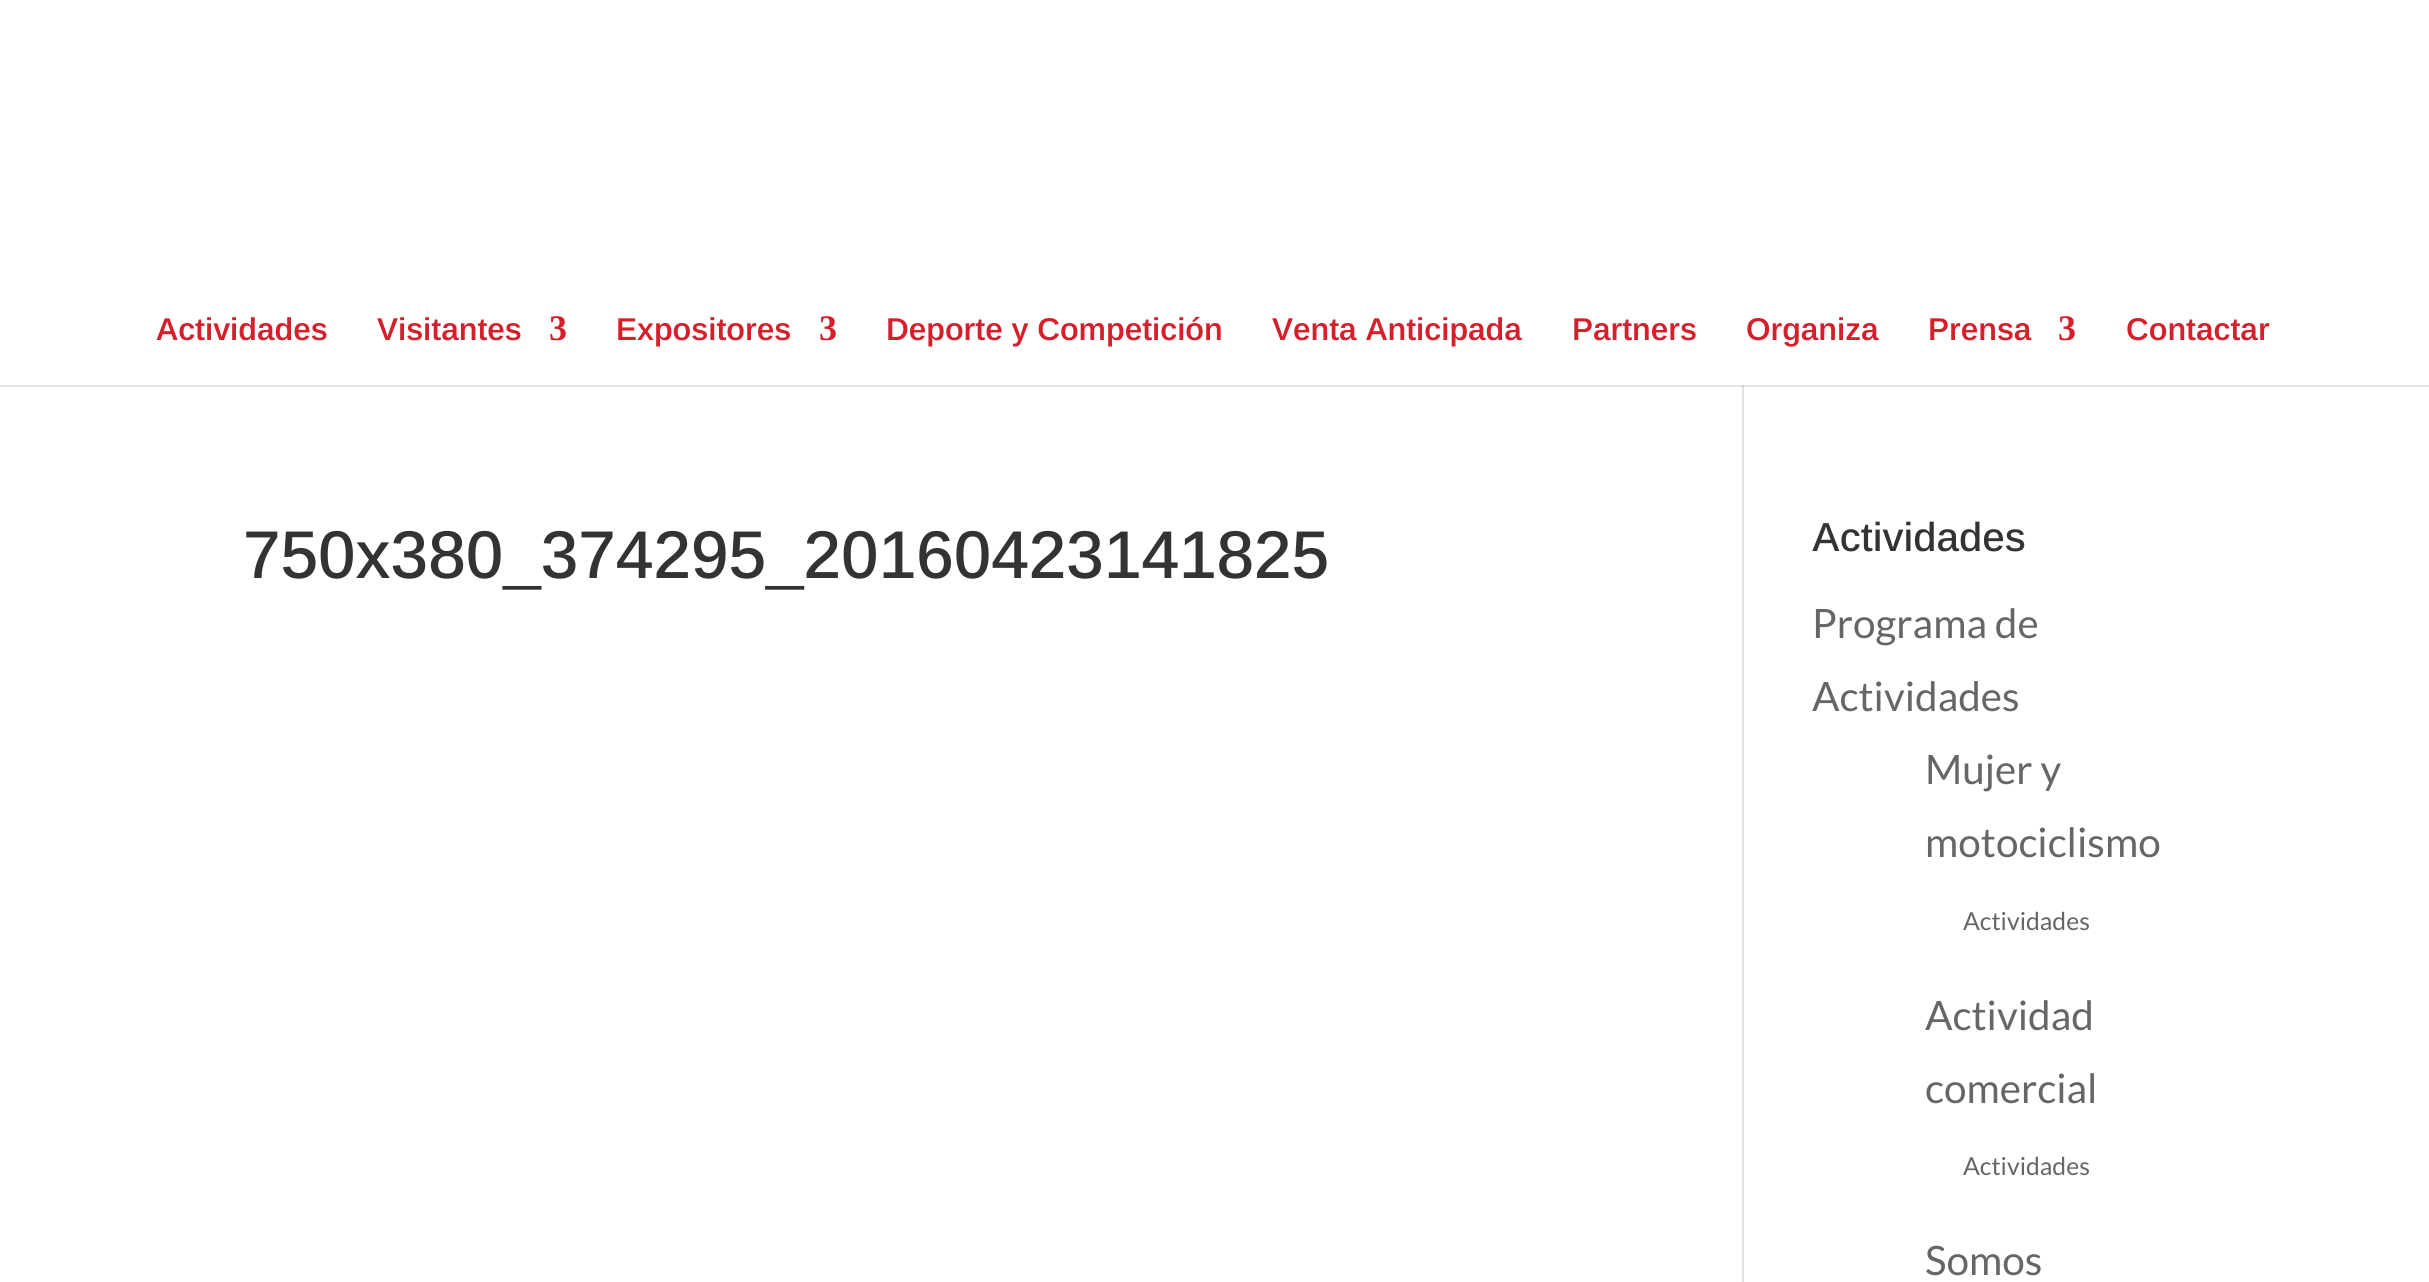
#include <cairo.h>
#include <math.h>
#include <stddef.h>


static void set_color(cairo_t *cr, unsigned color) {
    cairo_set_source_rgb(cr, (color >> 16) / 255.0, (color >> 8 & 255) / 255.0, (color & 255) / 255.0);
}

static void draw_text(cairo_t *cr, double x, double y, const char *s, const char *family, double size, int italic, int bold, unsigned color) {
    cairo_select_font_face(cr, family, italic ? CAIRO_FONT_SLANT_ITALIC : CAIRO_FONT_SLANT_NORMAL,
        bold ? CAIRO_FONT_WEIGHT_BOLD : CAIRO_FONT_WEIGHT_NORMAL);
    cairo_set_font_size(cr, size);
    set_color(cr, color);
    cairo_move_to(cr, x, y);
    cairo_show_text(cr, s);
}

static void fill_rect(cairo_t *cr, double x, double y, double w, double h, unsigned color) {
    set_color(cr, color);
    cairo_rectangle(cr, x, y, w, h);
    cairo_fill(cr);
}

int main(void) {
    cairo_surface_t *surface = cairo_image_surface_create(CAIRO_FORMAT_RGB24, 2429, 1282);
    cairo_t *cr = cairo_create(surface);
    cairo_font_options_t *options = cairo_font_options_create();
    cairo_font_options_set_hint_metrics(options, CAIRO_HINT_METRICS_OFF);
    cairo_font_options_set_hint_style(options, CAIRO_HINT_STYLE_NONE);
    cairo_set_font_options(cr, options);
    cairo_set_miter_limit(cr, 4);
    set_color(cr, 0xFFFFFF);
    cairo_paint(cr);
    draw_text(cr, 156, 340, "Actividades", "Arimo SemiBold", 31.5, 0, 0, 0xD5202B);
    draw_text(cr, 377, 340, "Visitantes", "Arimo SemiBold", 31.5, 0, 0, 0xD5202B);
    draw_text(cr, 549, 340, "3", "Liberation Serif", 36, 0, 1, 0xD5202B);
    draw_text(cr, 616, 340, "Expositores", "Arimo SemiBold", 31.5, 0, 0, 0xD5202B);
    draw_text(cr, 819, 340, "3", "Liberation Serif", 36, 0, 1, 0xD5202B);
    draw_text(cr, 886, 340, "Deporte y Competición", "Arimo SemiBold", 31.5, 0, 0, 0xD5202B);
    draw_text(cr, 1272, 340, "Venta Anticipada", "Arimo SemiBold", 31.5, 0, 0, 0xD5202B);
    draw_text(cr, 1572, 340, "Partners", "Arimo SemiBold", 31.5, 0, 0, 0xD5202B);
    draw_text(cr, 1746, 340, "Organiza", "Arimo SemiBold", 31.5, 0, 0, 0xD5202B);
    draw_text(cr, 1928, 340, "Prensa", "Arimo SemiBold", 31.5, 0, 0, 0xD5202B);
    draw_text(cr, 2058, 340, "3", "Liberation Serif", 36, 0, 1, 0xD5202B);
    draw_text(cr, 2126, 340, "Contactar", "Arimo SemiBold", 31.5, 0, 0, 0xD5202B);
    fill_rect(cr, 0, 385, 2429, 2, 0xE6E6E6);
    fill_rect(cr, 1742, 385, 2, 897, 0xE2E2E2);
    fill_rect(cr, 1742, 385, 2, 2, 0xCBCBCB);
    draw_text(cr, 243, 578, "750x380_374295_20160423141825", "Arimo Medium", 67.5, 0, 0, 0x333333);
    draw_text(cr, 1812, 551, "Actividades", "Arimo Medium", 40.5, 0, 0, 0x333333);
    draw_text(cr, 1812, 638, "Programa de", "Lato", 40.5, 0, 0, 0x666666);
    draw_text(cr, 1812, 711, "Actividades", "Lato", 40.5, 0, 0, 0x666666);
    draw_text(cr, 1925, 784, "Mujer y", "Lato", 40.5, 0, 0, 0x666666);
    draw_text(cr, 1925, 857, "motociclismo", "Lato", 40.5, 0, 0, 0x666666);
    draw_text(cr, 1963, 930, "Actividades", "Lato", 24.75, 0, 0, 0x666666);
    draw_text(cr, 1925, 1030, "Actividad", "Lato", 40.5, 0, 0, 0x666666);
    draw_text(cr, 1925, 1103, "comercial", "Lato", 40.5, 0, 0, 0x666666);
    draw_text(cr, 1963, 1175, "Actividades", "Lato", 24.75, 0, 0, 0x666666);
    draw_text(cr, 1925, 1275, "Somos", "Lato", 40.5, 0, 0, 0x666666);
    cairo_surface_write_to_png(surface, "output.png");
    cairo_font_options_destroy(options);
    cairo_destroy(cr);
    cairo_surface_destroy(surface);
    return 0;
}
